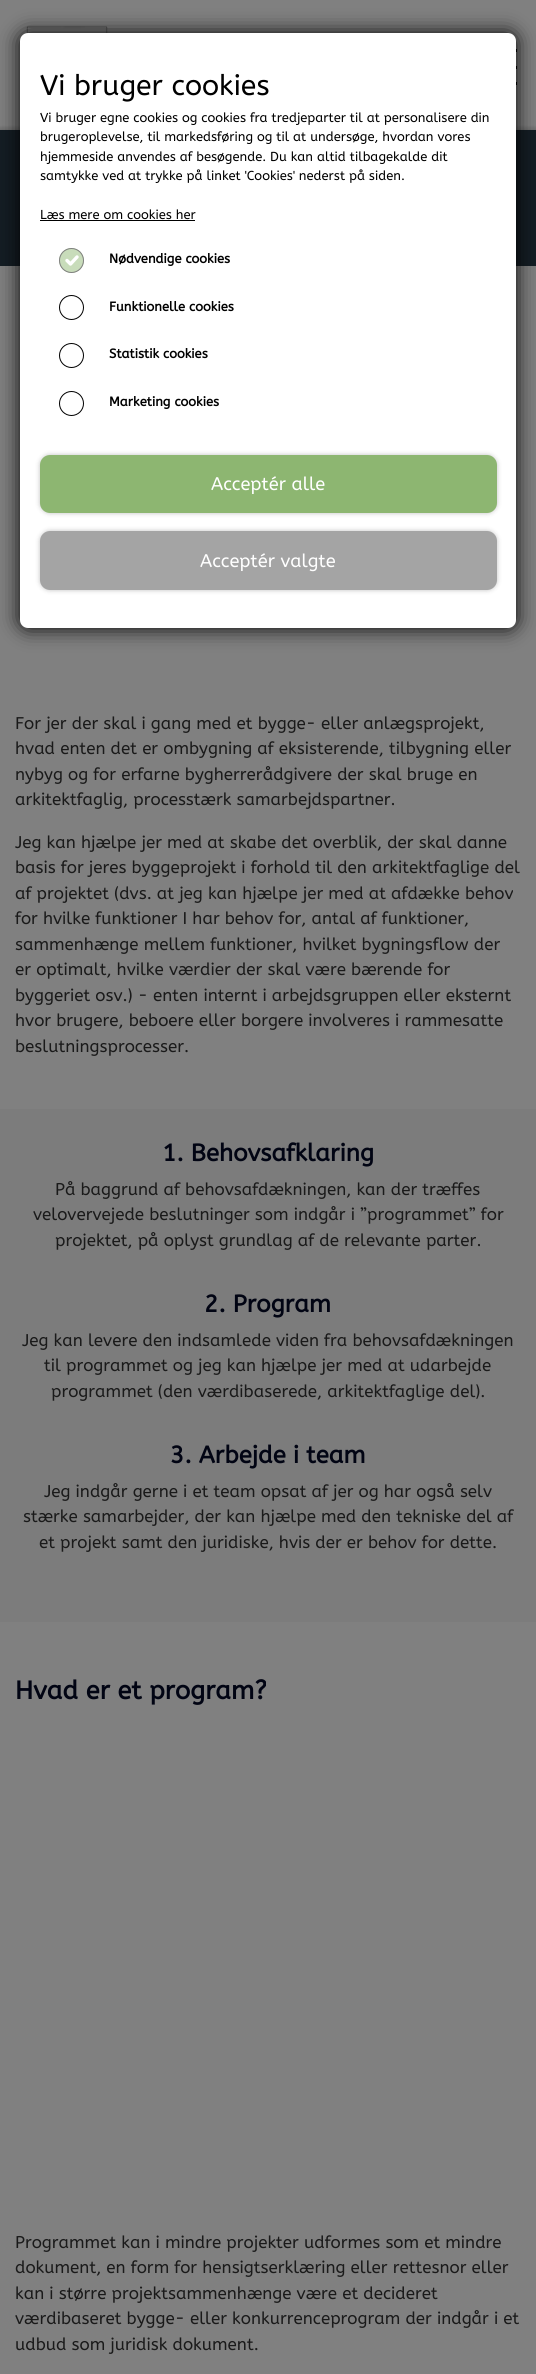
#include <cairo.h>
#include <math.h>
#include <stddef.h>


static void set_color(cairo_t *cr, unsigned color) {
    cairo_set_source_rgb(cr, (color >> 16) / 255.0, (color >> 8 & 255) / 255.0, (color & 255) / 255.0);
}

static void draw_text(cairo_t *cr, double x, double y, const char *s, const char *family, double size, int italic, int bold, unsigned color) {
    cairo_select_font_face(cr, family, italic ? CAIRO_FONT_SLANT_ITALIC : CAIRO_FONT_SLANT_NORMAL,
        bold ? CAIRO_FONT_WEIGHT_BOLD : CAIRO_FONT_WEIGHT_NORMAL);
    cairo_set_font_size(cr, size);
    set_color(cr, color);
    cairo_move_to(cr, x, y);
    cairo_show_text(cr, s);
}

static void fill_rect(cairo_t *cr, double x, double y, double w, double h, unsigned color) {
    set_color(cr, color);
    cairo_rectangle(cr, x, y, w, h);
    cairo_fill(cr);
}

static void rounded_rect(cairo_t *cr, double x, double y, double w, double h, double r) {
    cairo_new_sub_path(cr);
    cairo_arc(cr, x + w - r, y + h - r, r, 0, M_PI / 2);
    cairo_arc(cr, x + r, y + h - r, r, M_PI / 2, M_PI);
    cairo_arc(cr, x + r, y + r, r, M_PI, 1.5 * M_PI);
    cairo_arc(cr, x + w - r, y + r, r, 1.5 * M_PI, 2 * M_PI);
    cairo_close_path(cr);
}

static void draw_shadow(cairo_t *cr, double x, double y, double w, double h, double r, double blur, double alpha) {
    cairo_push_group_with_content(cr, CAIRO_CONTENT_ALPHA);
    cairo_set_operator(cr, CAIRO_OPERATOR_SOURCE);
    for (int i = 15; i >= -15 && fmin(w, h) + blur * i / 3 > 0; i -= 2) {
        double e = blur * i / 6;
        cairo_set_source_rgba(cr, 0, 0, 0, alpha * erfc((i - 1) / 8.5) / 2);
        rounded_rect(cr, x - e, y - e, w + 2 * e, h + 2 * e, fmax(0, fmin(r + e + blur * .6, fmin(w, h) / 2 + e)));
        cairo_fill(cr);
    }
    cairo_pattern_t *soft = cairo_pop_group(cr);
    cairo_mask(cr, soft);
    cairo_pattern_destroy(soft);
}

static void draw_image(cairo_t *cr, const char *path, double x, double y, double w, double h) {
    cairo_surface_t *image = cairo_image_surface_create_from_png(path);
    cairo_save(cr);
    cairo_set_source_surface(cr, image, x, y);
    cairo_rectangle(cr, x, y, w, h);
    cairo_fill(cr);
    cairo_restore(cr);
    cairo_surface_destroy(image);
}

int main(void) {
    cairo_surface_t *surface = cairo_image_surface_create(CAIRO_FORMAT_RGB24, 536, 2374);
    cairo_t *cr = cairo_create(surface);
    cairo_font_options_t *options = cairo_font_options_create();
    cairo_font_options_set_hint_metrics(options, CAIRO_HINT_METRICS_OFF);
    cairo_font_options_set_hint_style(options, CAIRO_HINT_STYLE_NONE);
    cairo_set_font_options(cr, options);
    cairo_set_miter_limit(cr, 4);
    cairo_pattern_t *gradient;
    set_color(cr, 0x141D24);
    cairo_paint(cr);
    fill_rect(cr, 0, 0, 536, 125, 0x808080);
    draw_image(cr, "assets/img1.png", 25, 26, 83, 8);
    fill_rect(cr, 516, 49, 1, 3, 0x000000);
    fill_rect(cr, 516, 66, 1, 3, 0x000000);
    fill_rect(cr, 516, 82, 1, 3, 0x000000);
    gradient = cairo_pattern_create_linear(268, 130, 268, 125);
    cairo_pattern_add_color_stop_rgba(gradient, 0, 0.427, 0.427, 0.427, 1);
    cairo_pattern_add_color_stop_rgba(gradient, 1, 0.502, 0.502, 0.502, 1);
    cairo_set_source(cr, gradient);
    cairo_pattern_destroy(gradient);
    cairo_rectangle(cr, 0, 125, 536, 5);
    cairo_fill(cr);
    fill_rect(cr, 0, 266, 536, 843, 0x808080);
    set_color(cr, 0x000000);
    draw_shadow(cr, 20, 33, 496, 595, 8, 10, 1);
    set_color(cr, 0xFFFFFF);
    rounded_rect(cr, 20, 33, 496, 595, 8);
    cairo_fill(cr);
    draw_text(cr, 40, 95, "Vi bruger cookies", "ABeeZee", 28.5, 0, 0, 0x000000);
    draw_text(cr, 40, 122, "Vi bruger egne cookies og cookies fra tredjeparter til at personalisere din", "ABeeZee", 13, 0, 0, 0x000000);
    draw_text(cr, 40, 141, "brugeroplevelse, til markedsføring og til at undersøge, hvordan vores", "ABeeZee", 13, 0, 0, 0x000000);
    draw_text(cr, 40, 161, "hjemmeside anvendes af besøgende. Du kan altid tilbagekalde dit", "ABeeZee", 13, 0, 0, 0x000000);
    draw_text(cr, 40, 180, "samtykke ved at trykke på linket 'Cookies' nederst på siden.", "ABeeZee", 13, 0, 0, 0x000000);
    draw_text(cr, 40, 219, "Læs mere om cookies her", "ABeeZee", 13, 0, 0, 0x000000);
    fill_rect(cr, 40, 220, 155, 1, 0x000000);
    set_color(cr, 0xC8DCBA);
    cairo_new_path(cr);
    cairo_arc(cr, 71.5, 260.5, 12.5, 0, 2 * M_PI);
    cairo_fill(cr);
    cairo_new_path(cr);
    cairo_move_to(cr, 67, 260.5);
    cairo_line_to(cr, 70.5, 264);
    cairo_line_to(cr, 77, 257);
    set_color(cr, 0xFFFFFF);
    cairo_set_line_width(cr, 3.4);
    cairo_set_line_cap(cr, CAIRO_LINE_CAP_ROUND);
    cairo_set_line_join(cr, CAIRO_LINE_JOIN_ROUND);
    cairo_stroke(cr);
    cairo_arc(cr, 71.5, 260.5, 12, 0, 2 * M_PI);
    set_color(cr, 0x808080);
    cairo_set_line_width(cr, 1);
    cairo_set_line_cap(cr, CAIRO_LINE_CAP_BUTT);
    cairo_set_line_join(cr, CAIRO_LINE_JOIN_MITER);
    cairo_stroke(cr);
    draw_text(cr, 109, 263, "Nødvendige cookies", "ABeeZee", 13, 0, 1, 0x000000);
    cairo_new_path(cr);
    cairo_arc(cr, 71.5, 307.5, 12, 0, 2 * M_PI);
    cairo_stroke(cr);
    draw_text(cr, 109, 311, "Funktionelle cookies", "ABeeZee", 13, 0, 1, 0x000000);
    cairo_new_path(cr);
    cairo_arc(cr, 71.5, 355.5, 12, 0, 2 * M_PI);
    cairo_stroke(cr);
    draw_text(cr, 109, 358, "Statistik cookies", "ABeeZee", 13, 0, 1, 0x000000);
    cairo_new_path(cr);
    cairo_arc(cr, 71.5, 403.5, 12, 0, 2 * M_PI);
    cairo_stroke(cr);
    draw_text(cr, 109, 406, "Marketing cookies", "ABeeZee", 13, 0, 1, 0x000000);
    set_color(cr, 0x000000);
    draw_shadow(cr, 40, 455, 457, 58, 10, 2.5, 0.25);
    set_color(cr, 0x8DB671);
    rounded_rect(cr, 40, 455, 457, 58, 10);
    cairo_fill(cr);
    draw_text(cr, 211, 490, "Acceptér alle", "ABeeZee", 18.25, 0, 0, 0xFFFFFF);
    set_color(cr, 0x000000);
    draw_shadow(cr, 40, 531, 457, 59, 10, 2.5, 0.25);
    set_color(cr, 0xA4A4A4);
    rounded_rect(cr, 40, 531, 457, 59, 10);
    cairo_fill(cr);
    draw_text(cr, 200, 567, "Acceptér valgte", "ABeeZee", 18.25, 0, 0, 0xFFFFFF);
    draw_text(cr, 15, 729, "For jer der skal i gang med et bygge- eller anlægsprojekt,", "ABeeZee", 17, 0, 0, 0x1A1A1A);
    draw_text(cr, 15, 754, "hvad enten det er ombygning af eksisterende, tilbygning eller", "ABeeZee", 17, 0, 0, 0x1A1A1A);
    draw_text(cr, 15, 780, "nybyg og for erfarne bygherrerådgivere der skal bruge en", "ABeeZee", 17, 0, 0, 0x1A1A1A);
    draw_text(cr, 15, 805, "arkitektfaglig, processtærk samarbejdspartner.", "ABeeZee", 17, 0, 0, 0x1A1A1A);
    draw_text(cr, 15, 848, "Jeg kan hjælpe jer med at skabe det overblik, der skal danne", "ABeeZee", 17, 0, 0, 0x1A1A1A);
    draw_text(cr, 15, 873, "basis for jeres byggeprojekt i forhold til den arkitektfaglige del", "ABeeZee", 17, 0, 0, 0x1A1A1A);
    draw_text(cr, 15, 899, "af projektet (dvs. at jeg kan hjælpe jer med at afdække behov", "ABeeZee", 17, 0, 0, 0x1A1A1A);
    draw_text(cr, 15, 924, "for hvilke funktioner I har behov for, antal af funktioner,", "ABeeZee", 17, 0, 0, 0x1A1A1A);
    draw_text(cr, 15, 950, "sammenhænge mellem funktioner, hvilket bygningsflow der", "ABeeZee", 17, 0, 0, 0x1A1A1A);
    draw_text(cr, 15, 975, "er optimalt, hvilke værdier der skal være bærende for", "ABeeZee", 17, 0, 0, 0x1A1A1A);
    draw_text(cr, 15, 1001, "byggeriet osv.) - enten internt i arbejdsgruppen eller eksternt", "ABeeZee", 17, 0, 0, 0x1A1A1A);
    draw_text(cr, 15, 1026, "hvor brugere, beboere eller borgere involveres i rammesatte", "ABeeZee", 17, 0, 0, 0x1A1A1A);
    draw_text(cr, 15, 1052, "beslutningsprocesser.", "ABeeZee", 17, 0, 0, 0x1A1A1A);
    fill_rect(cr, 0, 1109, 536, 513, 0x7C7C7C);
    draw_text(cr, 162, 1161, "1. Behovsafklaring", "ABeeZee", 24, 0, 1, 0x010413);
    draw_text(cr, 55, 1195, "På baggrund af behovsafdækningen, kan der træffes", "ABeeZee", 17, 0, 0, 0x1A1A1A);
    draw_text(cr, 33, 1220, "velovervejede beslutninger som indgår i ”programmet” for", "ABeeZee", 17, 0, 0, 0x1A1A1A);
    draw_text(cr, 55, 1246, "projektet, på oplyst grundlag af de relevante parter.", "ABeeZee", 17, 0, 0, 0x1A1A1A);
    draw_text(cr, 204, 1312, "2. Program", "ABeeZee", 24, 0, 1, 0x010413);
    draw_text(cr, 22, 1346, "Jeg kan levere den indsamlede viden fra behovsafdækningen", "ABeeZee", 17, 0, 0, 0x1A1A1A);
    draw_text(cr, 44, 1371, "til programmet og jeg kan hjælpe jer med at udarbejde", "ABeeZee", 17, 0, 0, 0x1A1A1A);
    draw_text(cr, 51, 1397, "programmet (den værdibaserede, arkitektfaglige del).", "ABeeZee", 17, 0, 0, 0x1A1A1A);
    draw_text(cr, 170, 1463, "3. Arbejde i team", "ABeeZee", 24, 0, 1, 0x010413);
    draw_text(cr, 44, 1497, "Jeg indgår gerne i et team opsat af jer og har også selv", "ABeeZee", 17, 0, 0, 0x1A1A1A);
    draw_text(cr, 23, 1522, "stærke samarbejder, der kan hjælpe med den tekniske del af", "ABeeZee", 17, 0, 0, 0x1A1A1A);
    draw_text(cr, 39, 1548, "et projekt samt den juridiske, hvis der er behov for dette.", "ABeeZee", 17, 0, 0, 0x1A1A1A);
    fill_rect(cr, 0, 1622, 536, 752, 0x808080);
    draw_text(cr, 15, 1699, "Hvad er et program?", "ABeeZee", 25.5, 0, 1, 0x010413);
    draw_text(cr, 15, 2248, "Programmet kan i mindre projekter udformes som et mindre", "ABeeZee", 17, 0, 0, 0x1A1A1A);
    draw_text(cr, 15, 2273, "dokument, en form for hensigtserklæring eller rettesnor eller", "ABeeZee", 17, 0, 0, 0x1A1A1A);
    draw_text(cr, 15, 2299, "kan i større projektsammenhænge være et decideret", "ABeeZee", 17, 0, 0, 0x1A1A1A);
    draw_text(cr, 15, 2324, "værdibaseret bygge- eller konkurrenceprogram der indgår i et", "ABeeZee", 17, 0, 0, 0x1A1A1A);
    draw_text(cr, 15, 2350, "udbud som juridisk dokument.", "ABeeZee", 17, 0, 0, 0x1A1A1A);
    cairo_surface_write_to_png(surface, "output.png");
    cairo_font_options_destroy(options);
    cairo_destroy(cr);
    cairo_surface_destroy(surface);
    return 0;
}
